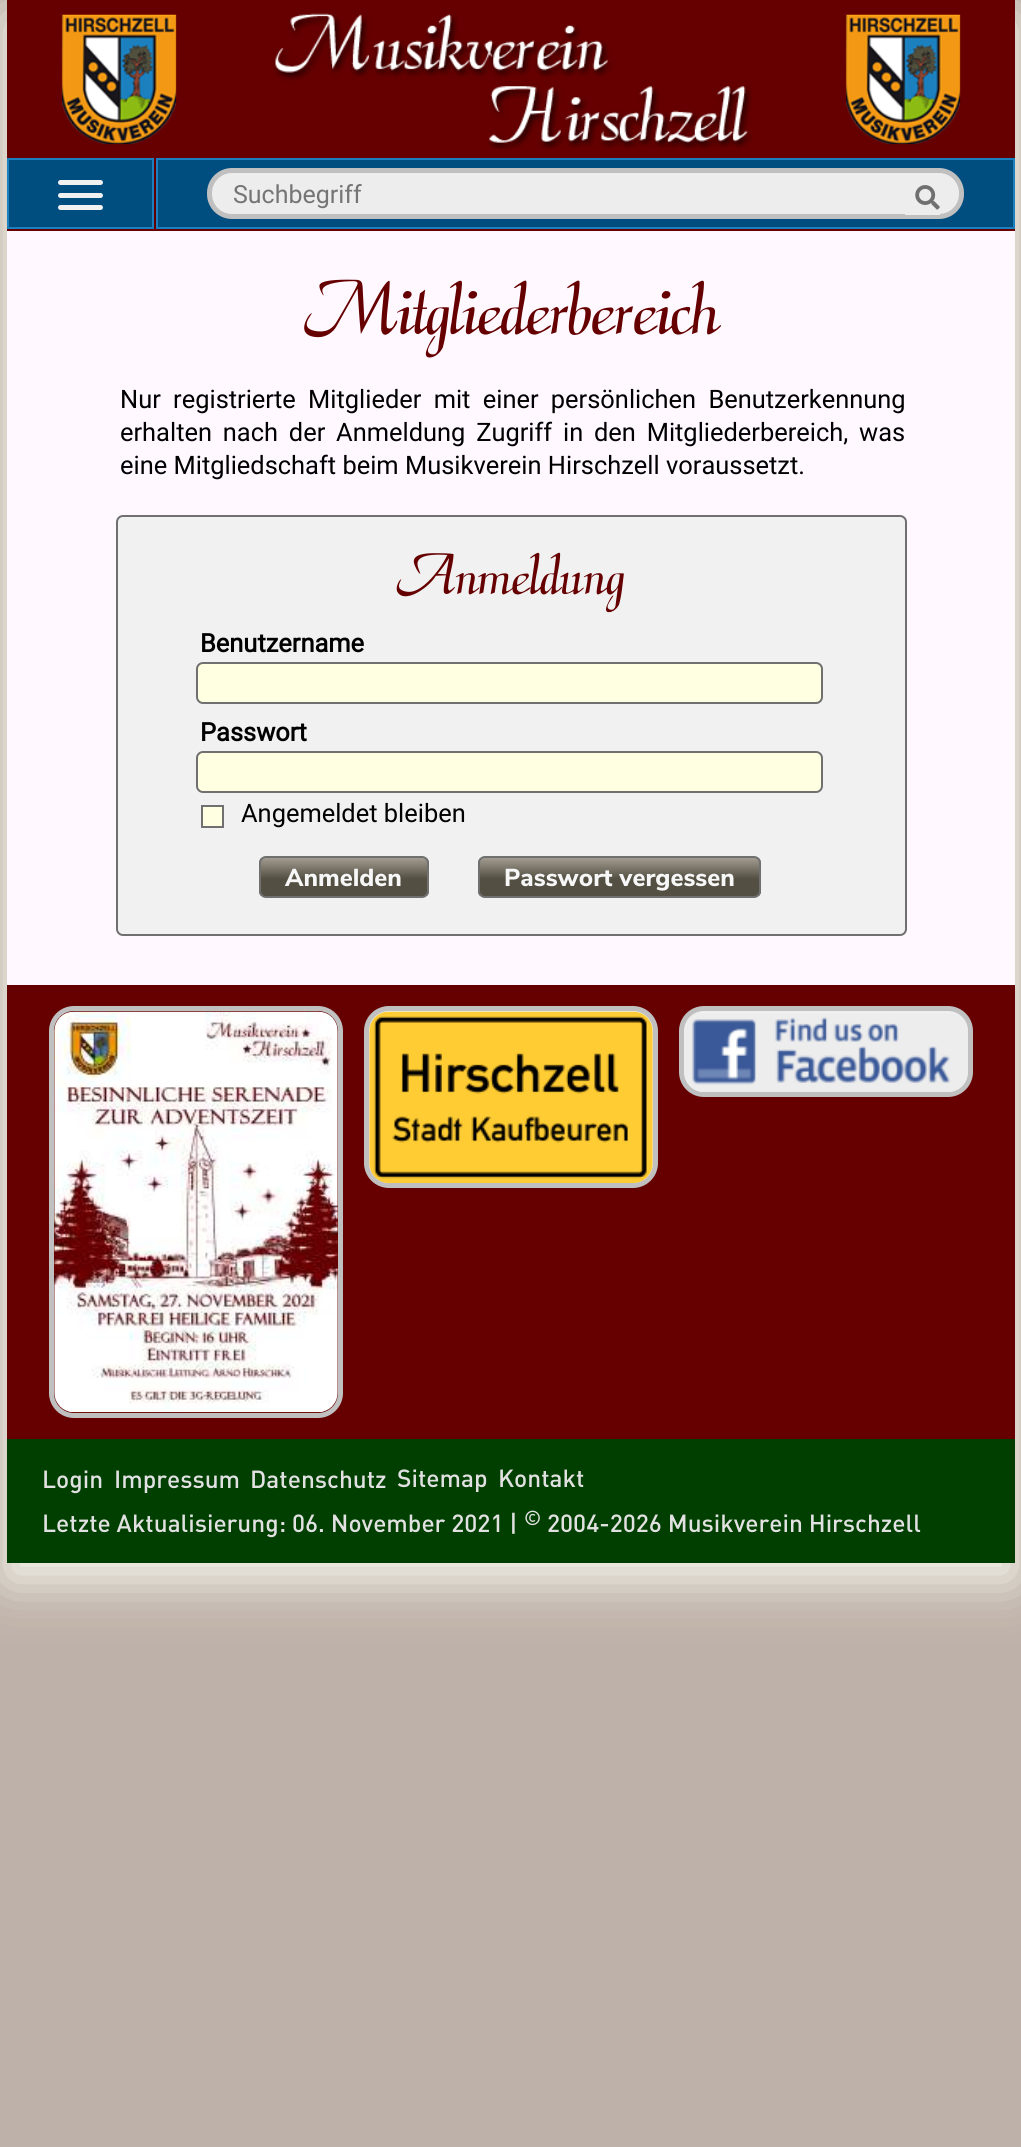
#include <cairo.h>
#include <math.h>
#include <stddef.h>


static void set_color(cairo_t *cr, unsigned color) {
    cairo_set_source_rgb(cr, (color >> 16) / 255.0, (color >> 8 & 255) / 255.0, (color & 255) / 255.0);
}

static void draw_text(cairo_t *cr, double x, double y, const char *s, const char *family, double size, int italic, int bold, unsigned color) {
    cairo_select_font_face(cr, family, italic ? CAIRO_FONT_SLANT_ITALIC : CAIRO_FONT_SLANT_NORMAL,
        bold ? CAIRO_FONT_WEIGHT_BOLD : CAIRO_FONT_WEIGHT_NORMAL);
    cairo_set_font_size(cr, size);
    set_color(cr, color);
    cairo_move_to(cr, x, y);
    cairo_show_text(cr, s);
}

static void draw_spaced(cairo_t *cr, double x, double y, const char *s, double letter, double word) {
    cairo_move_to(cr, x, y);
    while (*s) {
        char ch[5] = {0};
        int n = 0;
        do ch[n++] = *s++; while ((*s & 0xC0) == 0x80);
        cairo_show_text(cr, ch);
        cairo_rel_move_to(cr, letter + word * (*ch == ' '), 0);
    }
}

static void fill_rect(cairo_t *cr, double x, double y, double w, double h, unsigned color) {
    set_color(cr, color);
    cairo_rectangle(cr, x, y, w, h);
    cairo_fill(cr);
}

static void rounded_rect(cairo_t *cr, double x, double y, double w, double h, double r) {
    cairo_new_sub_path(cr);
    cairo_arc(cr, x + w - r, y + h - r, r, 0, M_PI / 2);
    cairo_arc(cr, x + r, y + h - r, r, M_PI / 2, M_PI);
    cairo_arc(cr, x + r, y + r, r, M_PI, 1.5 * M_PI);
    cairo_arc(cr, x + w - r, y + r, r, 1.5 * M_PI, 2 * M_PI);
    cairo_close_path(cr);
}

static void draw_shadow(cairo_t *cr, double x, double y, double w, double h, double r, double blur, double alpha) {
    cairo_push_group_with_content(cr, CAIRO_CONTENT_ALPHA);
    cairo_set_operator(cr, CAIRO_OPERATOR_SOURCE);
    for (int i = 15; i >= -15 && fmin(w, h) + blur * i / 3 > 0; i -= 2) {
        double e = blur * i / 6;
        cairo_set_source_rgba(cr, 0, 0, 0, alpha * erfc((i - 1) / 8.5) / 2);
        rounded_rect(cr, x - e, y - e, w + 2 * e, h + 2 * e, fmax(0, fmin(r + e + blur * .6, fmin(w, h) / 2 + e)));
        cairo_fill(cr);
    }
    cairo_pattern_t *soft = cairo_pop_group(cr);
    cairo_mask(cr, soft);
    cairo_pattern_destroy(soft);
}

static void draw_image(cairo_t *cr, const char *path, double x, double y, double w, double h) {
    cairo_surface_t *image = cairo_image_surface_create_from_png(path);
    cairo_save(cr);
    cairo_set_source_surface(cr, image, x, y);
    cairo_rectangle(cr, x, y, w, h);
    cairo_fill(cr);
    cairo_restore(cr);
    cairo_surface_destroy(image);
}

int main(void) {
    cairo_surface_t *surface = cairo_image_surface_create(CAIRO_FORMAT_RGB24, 1021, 2147);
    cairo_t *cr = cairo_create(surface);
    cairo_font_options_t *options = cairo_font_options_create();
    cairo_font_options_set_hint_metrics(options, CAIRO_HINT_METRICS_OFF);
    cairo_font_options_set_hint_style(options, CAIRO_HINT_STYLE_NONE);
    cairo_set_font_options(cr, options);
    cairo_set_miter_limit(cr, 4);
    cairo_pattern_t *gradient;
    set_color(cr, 0xBEB1A9);
    cairo_paint(cr);
    set_color(cr, 0xF7F9EF);
    draw_shadow(cr, 7, 18, 1008, 1562, 0, 26, 1);
    fill_rect(cr, 7, 0, 1008, 231, 0x660000);
    draw_image(cr, "assets/img1.png", 61, 14, 116, 131);
    draw_image(cr, "assets/img2.png", 273, 13, 479, 136);
    draw_image(cr, "assets/img1.png", 845, 14, 116, 131);
    set_color(cr, 0x004E80);
    cairo_rectangle(cr, 8, 159, 145, 69);
    cairo_fill_preserve(cr);
    set_color(cr, 0x1C80BE);
    cairo_stroke(cr);
    set_color(cr, 0xF1F1F1);
    rounded_rect(cr, 58, 180, 45, 5, 2.5);
    cairo_fill(cr);
    rounded_rect(cr, 58, 193, 45, 5, 2.5);
    cairo_fill(cr);
    rounded_rect(cr, 58, 205, 45, 5, 2.5);
    cairo_fill(cr);
    set_color(cr, 0x004E80);
    cairo_rectangle(cr, 157, 159, 857, 69);
    cairo_fill_preserve(cr);
    set_color(cr, 0x1C80BE);
    cairo_stroke(cr);
    set_color(cr, 0xEDEDED);
    rounded_rect(cr, 209.5, 170.5, 752, 46, 22.5);
    cairo_fill_preserve(cr);
    set_color(cr, 0xC0C0C0);
    cairo_set_line_width(cr, 5);
    cairo_stroke(cr);
    draw_text(cr, 233, 203, "Suchbegriff", "Roboto", 25, 0, 0, 0x757575);
    fill_rect(cr, 905, 214, 35, 1, 0xEDEDED);
    draw_image(cr, "assets/img3.png", 915, 185, 25, 25);
    fill_rect(cr, 7, 231, 1008, 754, 0xFFF8FF);
    draw_text(cr, 303, 334, "Mitgliederbereich", "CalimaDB", 77, 0, 0, 0x660000);
    cairo_select_font_face(cr, "Roboto", CAIRO_FONT_SLANT_NORMAL, CAIRO_FONT_WEIGHT_NORMAL);
    cairo_set_font_size(cr, 25.45);
    set_color(cr, 0x000000);
    draw_spaced(cr, 120, 408, "Nur registrierte Mitglieder mit einer persönlichen Benutzerkennung", 0, 6);
    draw_spaced(cr, 120, 441, "erhalten nach der Anmeldung Zugriff in den Mitgliederbereich, was", 0, 4.5);
    draw_text(cr, 120, 474, "eine Mitgliedschaft beim Musikverein Hirschzell voraussetzt.", "Roboto", 25.45, 0, 0, 0x000000);
    set_color(cr, 0xF1F1F1);
    rounded_rect(cr, 117, 516, 789, 419, 6);
    cairo_fill_preserve(cr);
    set_color(cr, 0x707070);
    cairo_set_line_width(cr, 2);
    cairo_stroke(cr);
    draw_text(cr, 397, 594, "Anmeldung", "CalimaDB", 59.5, 0, 0, 0x660000);
    draw_text(cr, 200, 652, "Benutzername", "Roboto", 25.45, 0, 1, 0x000000);
    set_color(cr, 0xFFFFE1);
    rounded_rect(cr, 197, 663, 625, 40, 6);
    cairo_fill_preserve(cr);
    set_color(cr, 0x707070);
    cairo_stroke(cr);
    draw_text(cr, 200, 741, "Passwort", "Roboto", 25.45, 0, 1, 0x000000);
    set_color(cr, 0xFFFFE1);
    rounded_rect(cr, 197, 752, 625, 40, 6);
    cairo_fill_preserve(cr);
    set_color(cr, 0x707070);
    cairo_stroke(cr);
    set_color(cr, 0xFFFFE1);
    cairo_rectangle(cr, 202, 806, 21, 21);
    cairo_fill_preserve(cr);
    set_color(cr, 0x707070);
    cairo_stroke(cr);
    draw_text(cr, 241, 822, "Angemeldet bleiben", "Roboto", 25.45, 0, 0, 0x000000);
    cairo_save(cr);
    rounded_rect(cr, 259, 856, 170, 42, 7);
    cairo_clip(cr);
    gradient = cairo_pattern_create_linear(344, 858, 344, 896);
    cairo_pattern_add_color_stop_rgba(gradient, 0, 0.635, 0.612, 0.565, 1);
    cairo_pattern_add_color_stop_rgba(gradient, 0.55, 0.329, 0.31, 0.263, 1);
    cairo_pattern_add_color_stop_rgba(gradient, 1, 0.329, 0.31, 0.263, 1);
    cairo_set_source(cr, gradient);
    cairo_pattern_destroy(gradient);
    cairo_rectangle(cr, 259, 858, 170, 38);
    cairo_fill(cr);
    cairo_restore(cr);
    rounded_rect(cr, 260, 857, 168, 40, 6);
    set_color(cr, 0x707070);
    cairo_stroke(cr);
    draw_text(cr, 285, 886, "Anmelden", "Nunito Sans ExtraBold", 24.5, 0, 0, 0xF7F7F7);
    cairo_save(cr);
    rounded_rect(cr, 478, 856, 283, 42, 7);
    cairo_clip(cr);
    gradient = cairo_pattern_create_linear(620, 858, 620, 896);
    cairo_pattern_add_color_stop_rgba(gradient, 0, 0.635, 0.612, 0.565, 1);
    cairo_pattern_add_color_stop_rgba(gradient, 0.55, 0.329, 0.31, 0.263, 1);
    cairo_pattern_add_color_stop_rgba(gradient, 1, 0.329, 0.31, 0.263, 1);
    cairo_set_source(cr, gradient);
    cairo_pattern_destroy(gradient);
    cairo_rectangle(cr, 478, 858, 283, 38);
    cairo_fill(cr);
    cairo_restore(cr);
    rounded_rect(cr, 479, 857, 281, 40, 6);
    set_color(cr, 0x707070);
    cairo_stroke(cr);
    draw_text(cr, 504, 886, "Passwort vergessen", "Nunito Sans ExtraBold", 24.5, 0, 0, 0xF7F7F7);
    fill_rect(cr, 7, 985, 1008, 454, 0x660000);
    rounded_rect(cr, 51.5, 1008.5, 289, 407, 22.5);
    set_color(cr, 0xC0C0C0);
    cairo_set_line_width(cr, 5);
    cairo_stroke(cr);
    draw_image(cr, "assets/img4.png", 54, 1011, 284, 402);
    set_color(cr, 0xEDEDED);
    rounded_rect(cr, 366.5, 1008.5, 289, 177, 22.5);
    cairo_fill_preserve(cr);
    set_color(cr, 0xC0C0C0);
    cairo_stroke(cr);
    draw_image(cr, "assets/img5.png", 369, 1011, 284, 172);
    set_color(cr, 0xEDEDED);
    rounded_rect(cr, 681.5, 1008.5, 289, 86, 22.5);
    cairo_fill_preserve(cr);
    set_color(cr, 0xC0C0C0);
    cairo_stroke(cr);
    draw_image(cr, "assets/img6.png", 684, 1012, 284, 80);
    fill_rect(cr, 7, 1439, 1008, 124, 0x003F00);
    draw_text(cr, 42, 1488, "Login", "DIN Medium", 24.5, 0, 0, 0xE1E1E1);
    draw_text(cr, 114, 1488, "Impressum", "DIN Medium", 24.5, 0, 0, 0xE1E1E1);
    draw_text(cr, 250, 1488, "Datenschutz", "DIN Medium", 24.5, 0, 0, 0xE1E1E1);
    draw_text(cr, 397, 1487, "Sitemap", "DIN Medium", 24.5, 0, 0, 0xE1E1E1);
    draw_text(cr, 498, 1487, "Kontakt", "DIN Medium", 24.5, 0, 0, 0xE1E1E1);
    draw_text(cr, 42, 1532, "Letzte Aktualisierung: 06. November 2021 |", "DIN Medium", 24.5, 0, 0, 0xE1E1E1);
    draw_text(cr, 524, 1525, "©", "DIN Medium", 20, 0, 0, 0xE1E1E1);
    draw_text(cr, 547, 1532, "2004-2026 Musikverein Hirschzell", "DIN Medium", 24.5, 0, 0, 0xE1E1E1);
    cairo_surface_write_to_png(surface, "output.png");
    cairo_font_options_destroy(options);
    cairo_destroy(cr);
    cairo_surface_destroy(surface);
    return 0;
}
